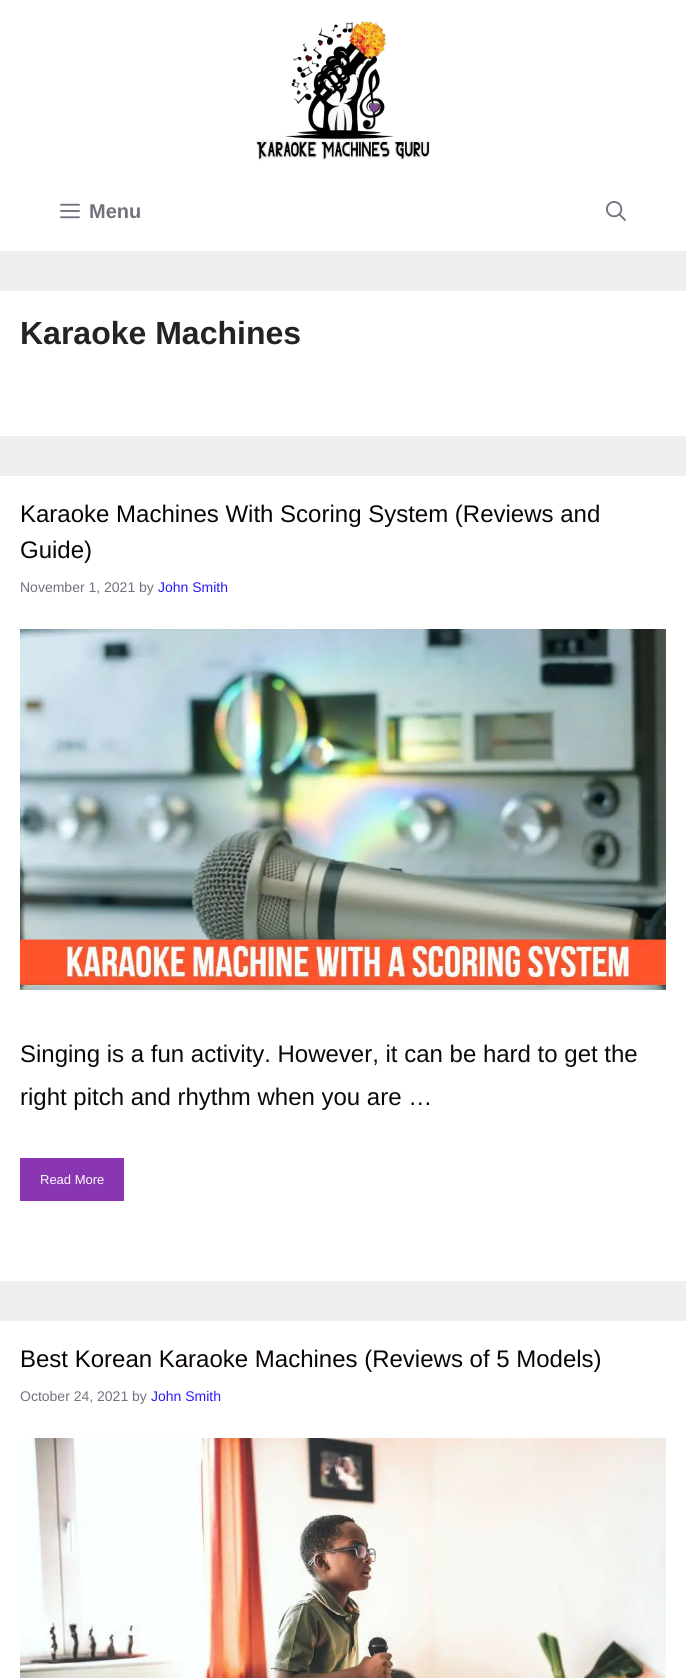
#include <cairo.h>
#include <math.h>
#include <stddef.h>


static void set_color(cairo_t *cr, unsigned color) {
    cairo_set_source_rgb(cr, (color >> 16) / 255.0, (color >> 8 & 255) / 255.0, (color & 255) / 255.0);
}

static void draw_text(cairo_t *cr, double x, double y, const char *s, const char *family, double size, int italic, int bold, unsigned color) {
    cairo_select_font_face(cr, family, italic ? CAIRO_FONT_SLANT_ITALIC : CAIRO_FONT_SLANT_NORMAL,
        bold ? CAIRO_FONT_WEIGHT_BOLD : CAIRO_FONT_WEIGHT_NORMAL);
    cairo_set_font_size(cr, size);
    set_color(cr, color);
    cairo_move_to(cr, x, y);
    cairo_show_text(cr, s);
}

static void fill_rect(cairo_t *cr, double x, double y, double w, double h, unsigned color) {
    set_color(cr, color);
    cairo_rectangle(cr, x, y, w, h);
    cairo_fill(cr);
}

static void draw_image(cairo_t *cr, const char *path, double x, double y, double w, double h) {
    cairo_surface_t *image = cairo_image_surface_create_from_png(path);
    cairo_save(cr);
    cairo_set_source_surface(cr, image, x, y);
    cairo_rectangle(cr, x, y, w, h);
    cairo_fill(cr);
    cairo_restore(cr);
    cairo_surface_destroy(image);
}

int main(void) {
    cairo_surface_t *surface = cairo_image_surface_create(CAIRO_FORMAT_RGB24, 686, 1678);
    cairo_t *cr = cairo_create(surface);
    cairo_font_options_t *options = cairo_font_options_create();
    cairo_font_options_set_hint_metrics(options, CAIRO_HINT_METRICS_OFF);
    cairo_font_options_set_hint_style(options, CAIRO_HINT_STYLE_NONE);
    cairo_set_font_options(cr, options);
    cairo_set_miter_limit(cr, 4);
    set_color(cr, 0xEFEFEF);
    cairo_paint(cr);
    fill_rect(cr, 0, 0, 686, 251, 0xFFFFFF);
    draw_image(cr, "assets/img1.png", 256, 21, 174, 140);
    draw_image(cr, "assets/img2.png", 60, 203, 20, 16);
    draw_text(cr, 89, 218, "Menu", "Liberation Sans", 20, 0, 1, 0x72727F);
    draw_image(cr, "assets/img3.png", 606, 201, 20, 20);
    fill_rect(cr, 0, 291, 686, 145, 0xFFFFFF);
    draw_text(cr, 20, 344, "Karaoke Machines", "Liberation Sans", 32, 0, 1, 0x232323);
    fill_rect(cr, 0, 476, 686, 805, 0xFFFFFF);
    draw_text(cr, 20, 522, "Karaoke Machines With Scoring System (Reviews and", "Liberation Sans", 24, 0, 0, 0x0A040A);
    draw_text(cr, 20, 558, "Guide)", "Liberation Sans", 24, 0, 0, 0x0A040A);
    draw_text(cr, 20, 592, "November 1, 2021 by", "Liberation Sans", 14, 0, 0, 0x72727F);
    draw_text(cr, 158, 592, "John Smith", "Liberation Sans", 14, 0, 0, 0x2A1BF9);
    draw_image(cr, "assets/img4.png", 20, 629, 646, 361);
    draw_text(cr, 20, 1062, "Singing is a fun activity. However, it can be hard to get the", "Liberation Sans", 24, 0, 0, 0x0A0A0A);
    draw_text(cr, 20, 1105, "right pitch and rhythm when you are …", "Liberation Sans", 24, 0, 0, 0x0A0A0A);
    fill_rect(cr, 20, 1158, 104, 43, 0x8A35B2);
    draw_text(cr, 40, 1184, "Read More", "Liberation Sans", 13, 0, 0, 0xFFFFFF);
    fill_rect(cr, 0, 1321, 686, 357, 0xFFFFFF);
    draw_text(cr, 20, 1367, "Best Korean Karaoke Machines (Reviews of 5 Models)", "Liberation Sans", 24, 0, 0, 0x0A040A);
    draw_text(cr, 20, 1401, "October 24, 2021 by", "Liberation Sans", 14, 0, 0, 0x72727F);
    draw_text(cr, 151, 1401, "John Smith", "Liberation Sans", 14, 0, 0, 0x2A1BF9);
    draw_image(cr, "assets/img5.png", 20, 1438, 646, 240);
    cairo_surface_write_to_png(surface, "output.png");
    cairo_font_options_destroy(options);
    cairo_destroy(cr);
    cairo_surface_destroy(surface);
    return 0;
}
